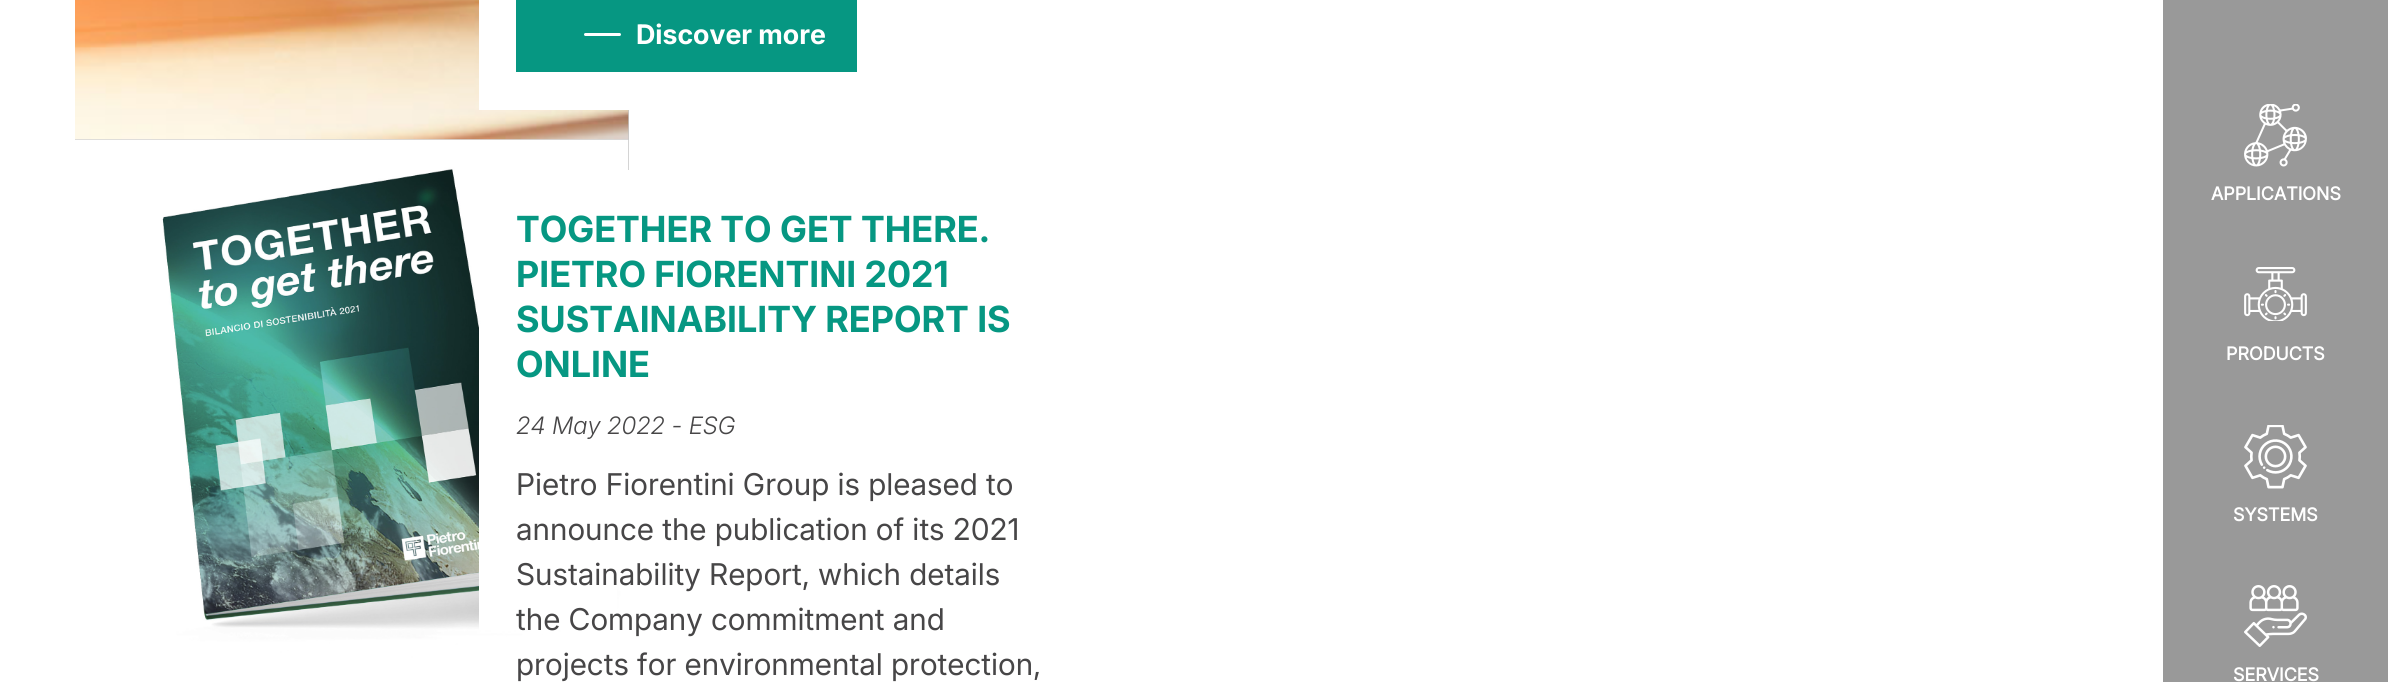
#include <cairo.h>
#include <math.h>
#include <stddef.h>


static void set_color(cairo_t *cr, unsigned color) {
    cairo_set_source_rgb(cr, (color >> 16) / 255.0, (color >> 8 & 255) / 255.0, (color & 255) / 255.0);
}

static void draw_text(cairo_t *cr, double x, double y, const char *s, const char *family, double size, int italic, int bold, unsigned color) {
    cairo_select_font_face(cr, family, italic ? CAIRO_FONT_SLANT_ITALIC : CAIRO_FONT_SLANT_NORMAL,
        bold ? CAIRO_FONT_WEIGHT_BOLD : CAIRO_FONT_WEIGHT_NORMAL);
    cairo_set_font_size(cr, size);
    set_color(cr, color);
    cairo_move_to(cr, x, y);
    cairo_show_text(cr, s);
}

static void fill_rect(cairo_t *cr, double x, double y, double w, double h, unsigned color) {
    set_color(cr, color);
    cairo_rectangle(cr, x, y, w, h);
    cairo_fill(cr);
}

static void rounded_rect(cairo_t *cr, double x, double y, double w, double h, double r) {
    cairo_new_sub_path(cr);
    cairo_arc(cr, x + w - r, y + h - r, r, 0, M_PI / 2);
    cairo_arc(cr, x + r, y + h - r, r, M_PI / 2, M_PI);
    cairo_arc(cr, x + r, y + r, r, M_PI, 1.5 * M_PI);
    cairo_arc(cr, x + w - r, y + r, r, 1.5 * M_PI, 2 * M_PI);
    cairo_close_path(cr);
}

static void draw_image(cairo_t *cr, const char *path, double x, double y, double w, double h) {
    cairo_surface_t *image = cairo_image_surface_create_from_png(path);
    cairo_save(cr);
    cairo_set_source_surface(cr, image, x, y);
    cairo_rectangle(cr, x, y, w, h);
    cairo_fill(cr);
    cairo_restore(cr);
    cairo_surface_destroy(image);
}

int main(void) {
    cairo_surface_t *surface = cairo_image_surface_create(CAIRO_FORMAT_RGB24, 2388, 682);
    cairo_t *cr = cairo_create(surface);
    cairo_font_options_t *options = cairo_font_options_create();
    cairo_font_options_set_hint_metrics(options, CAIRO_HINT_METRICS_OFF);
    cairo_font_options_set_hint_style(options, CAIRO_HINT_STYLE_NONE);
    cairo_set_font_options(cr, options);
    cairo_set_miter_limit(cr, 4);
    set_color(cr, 0xFFFFFF);
    cairo_paint(cr);
    fill_rect(cr, 75, 110, 554, 30, 0xC6C6C6);
    draw_image(cr, "assets/img1.png", 75, 0, 554, 140);
    fill_rect(cr, 479, 0, 150, 110, 0xFFFFFF);
    fill_rect(cr, 516, 0, 341, 72, 0x069782);
    set_color(cr, 0xFFFFFF);
    rounded_rect(cr, 584, 33, 37, 3, 1.5);
    cairo_fill(cr);
    draw_text(cr, 636, 44, "Discover more", "Inter", 27, 0, 1, 0xFFFFFF);
    fill_rect(cr, 628, 140, 1, 30, 0xC6C6C6);
    draw_image(cr, "assets/img2.png", 75, 139, 554, 543);
    fill_rect(cr, 479, 324, 138, 306, 0xFFFFFF);
    draw_text(cr, 516, 242, "TOGETHER TO GET THERE.", "Inter", 36, 0, 1, 0x069782);
    draw_text(cr, 516, 287, "PIETRO FIORENTINI 2021", "Inter", 36, 0, 1, 0x069782);
    draw_text(cr, 516, 332, "SUSTAINABILITY REPORT IS", "Inter", 36, 0, 1, 0x069782);
    draw_text(cr, 516, 377, "ONLINE", "Inter", 36, 0, 1, 0x069782);
    draw_text(cr, 516, 434, "24 May 2022 - ESG", "Inter Light", 24, 1, 0, 0x474647);
    draw_text(cr, 516, 495, "Pietro Fiorentini Group is pleased to", "Inter", 30, 0, 0, 0x474647);
    draw_text(cr, 516, 540, "announce the publication of its 2021", "Inter", 30, 0, 0, 0x474647);
    draw_text(cr, 516, 585, "Sustainability Report, which details", "Inter", 30, 0, 0, 0x474647);
    draw_text(cr, 516, 630, "the Company commitment and", "Inter", 30, 0, 0, 0x474647);
    draw_text(cr, 516, 675, "projects for environmental protection,", "Inter", 30, 0, 0, 0x474647);
    fill_rect(cr, 2163, 0, 225, 682, 0x999999);
    draw_image(cr, "assets/img3.png", 2244, 104, 63, 63);
    draw_text(cr, 2211, 200, "APPLICATIONS", "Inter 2", 18, 0, 1, 0xFFFFFF);
    draw_image(cr, "assets/img4.png", 2244, 267, 63, 54);
    draw_text(cr, 2226, 360, "PRODUCTS", "Inter 2", 18, 0, 1, 0xFFFFFF);
    draw_image(cr, "assets/img5.png", 2244, 425, 63, 64);
    draw_text(cr, 2233, 521, "SYSTEMS", "Inter 2", 18, 0, 1, 0xFFFFFF);
    draw_image(cr, "assets/img6.png", 2244, 585, 63, 62);
    draw_text(cr, 2233, 681, "SERVICES", "Inter 2", 18, 0, 1, 0xFFFFFF);
    cairo_surface_write_to_png(surface, "output.png");
    cairo_font_options_destroy(options);
    cairo_destroy(cr);
    cairo_surface_destroy(surface);
    return 0;
}
